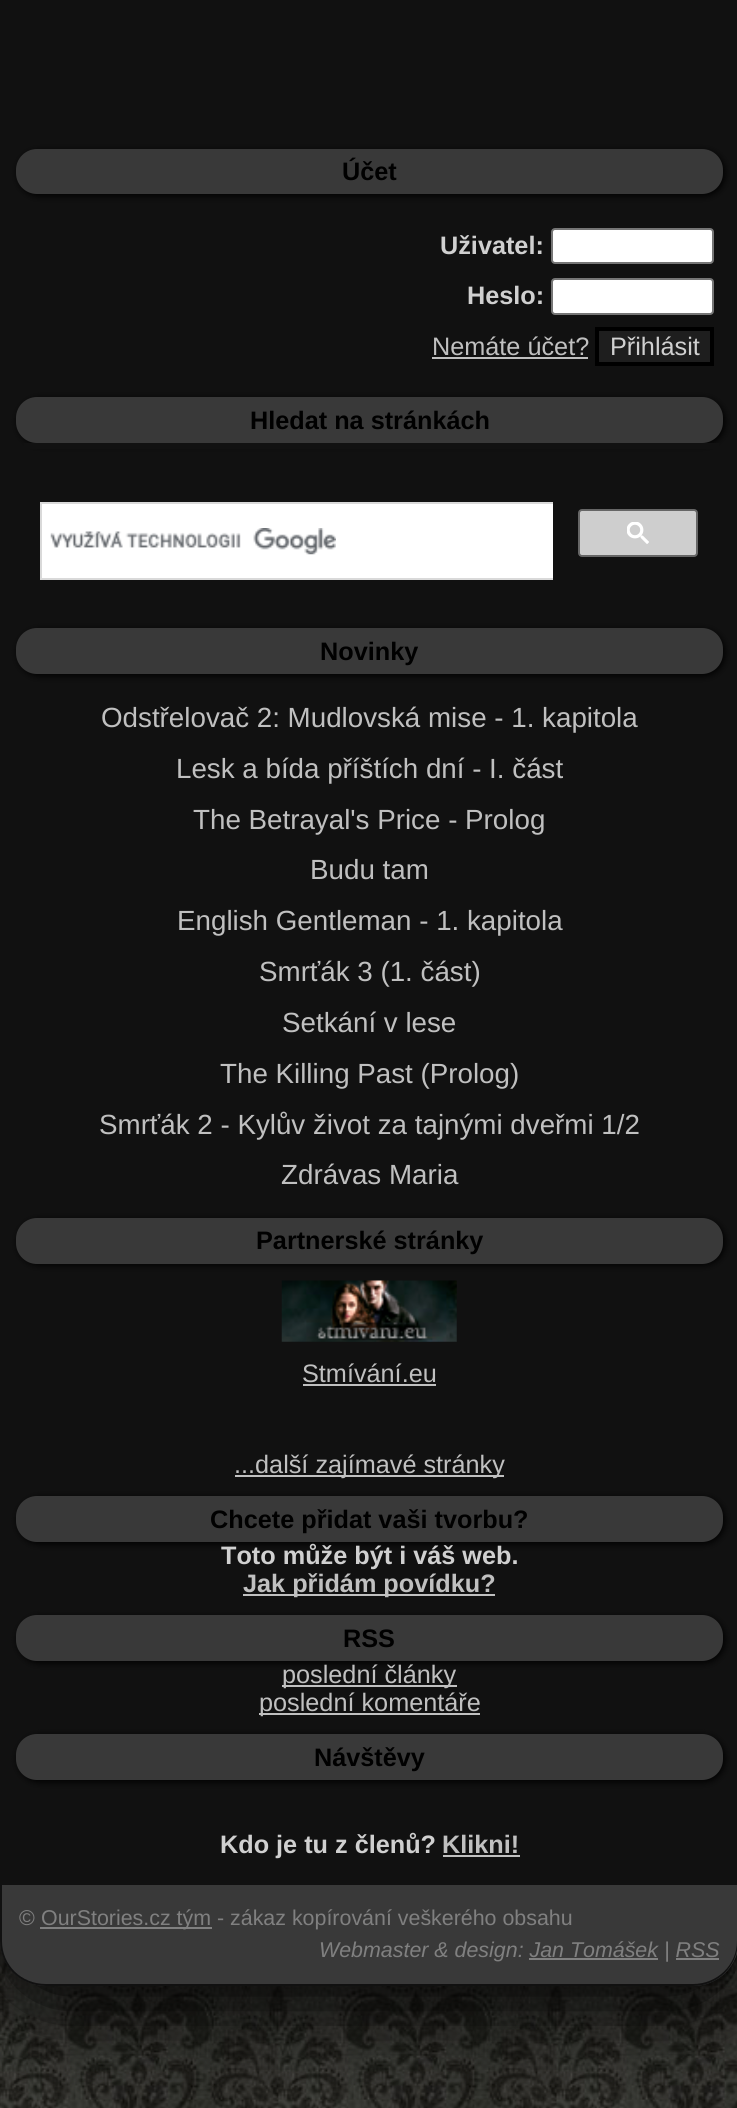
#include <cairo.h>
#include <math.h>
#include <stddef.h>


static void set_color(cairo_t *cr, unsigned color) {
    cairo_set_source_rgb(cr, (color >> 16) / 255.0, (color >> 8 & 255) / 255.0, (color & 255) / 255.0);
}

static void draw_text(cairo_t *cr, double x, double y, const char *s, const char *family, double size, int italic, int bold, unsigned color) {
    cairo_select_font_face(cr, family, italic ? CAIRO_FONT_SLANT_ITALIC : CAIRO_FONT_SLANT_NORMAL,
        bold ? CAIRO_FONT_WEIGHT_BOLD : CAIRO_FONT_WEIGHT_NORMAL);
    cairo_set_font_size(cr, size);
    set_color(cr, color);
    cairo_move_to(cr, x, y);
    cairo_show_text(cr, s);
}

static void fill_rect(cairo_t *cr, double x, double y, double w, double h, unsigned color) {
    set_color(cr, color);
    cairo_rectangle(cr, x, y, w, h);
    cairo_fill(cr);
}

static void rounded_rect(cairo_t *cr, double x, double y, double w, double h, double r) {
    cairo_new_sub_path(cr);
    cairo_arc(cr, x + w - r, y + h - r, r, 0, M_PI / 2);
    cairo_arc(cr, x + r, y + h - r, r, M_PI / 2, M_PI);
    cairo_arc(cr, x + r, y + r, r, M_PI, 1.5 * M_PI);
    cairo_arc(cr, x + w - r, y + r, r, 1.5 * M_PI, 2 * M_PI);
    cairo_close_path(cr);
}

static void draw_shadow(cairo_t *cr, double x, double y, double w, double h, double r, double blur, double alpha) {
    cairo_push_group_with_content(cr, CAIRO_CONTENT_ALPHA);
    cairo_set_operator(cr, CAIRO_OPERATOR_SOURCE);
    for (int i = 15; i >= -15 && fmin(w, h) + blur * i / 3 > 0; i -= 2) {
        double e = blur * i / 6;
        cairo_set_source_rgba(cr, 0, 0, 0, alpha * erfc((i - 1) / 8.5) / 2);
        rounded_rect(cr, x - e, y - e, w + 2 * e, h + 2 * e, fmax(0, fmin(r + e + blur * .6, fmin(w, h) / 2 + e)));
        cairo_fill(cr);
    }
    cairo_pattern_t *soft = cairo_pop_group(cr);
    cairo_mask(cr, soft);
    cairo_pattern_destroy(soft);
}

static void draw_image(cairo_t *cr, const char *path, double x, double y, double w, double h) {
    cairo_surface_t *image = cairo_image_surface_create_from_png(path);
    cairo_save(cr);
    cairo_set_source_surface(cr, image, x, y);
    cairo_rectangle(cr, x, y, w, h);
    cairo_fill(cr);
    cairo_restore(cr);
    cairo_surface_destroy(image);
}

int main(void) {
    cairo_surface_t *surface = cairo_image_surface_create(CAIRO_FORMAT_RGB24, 737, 2108);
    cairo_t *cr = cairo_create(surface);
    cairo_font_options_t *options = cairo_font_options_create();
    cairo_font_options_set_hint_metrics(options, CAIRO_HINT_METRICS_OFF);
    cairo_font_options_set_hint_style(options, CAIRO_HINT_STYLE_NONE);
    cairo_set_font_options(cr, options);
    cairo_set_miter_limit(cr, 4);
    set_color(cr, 0xFFFFFF);
    cairo_paint(cr);
    draw_image(cr, "assets/img1.png", 0, 1941, 737, 167);
    set_color(cr, 0x000000);
    draw_shadow(cr, 0, -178, 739, 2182, 46, 44, 1);
    set_color(cr, 0x111111);
    cairo_new_path(cr);
    cairo_move_to(cr, 0, -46);
    cairo_line_to(cr, 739, -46);
    cairo_line_to(cr, 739, 1940);
    cairo_curve_to(cr, 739, 1965.5, 718.5, 1986, 693, 1986);
    cairo_line_to(cr, 46, 1986);
    cairo_curve_to(cr, 20.5, 1986, 0, 1965.5, 0, 1940);
    cairo_close_path(cr);
    cairo_fill(cr);
    set_color(cr, 0x000000);
    draw_shadow(cr, 18, 151, 707, 45, 21, 3.5, 1);
    set_color(cr, 0x393939);
    rounded_rect(cr, 16, 149, 707, 45, 21);
    cairo_fill(cr);
    draw_text(cr, 342, 180, "Účet", "Liberation Sans", 25.25, 0, 1, 0x000000);
    draw_text(cr, 440, 254, "Uživatel:", "Liberation Sans", 25.25, 0, 1, 0xD0D0D0);
    set_color(cr, 0xFFFFFF);
    rounded_rect(cr, 552, 229, 161, 34, 3);
    cairo_fill_preserve(cr);
    set_color(cr, 0x767676);
    cairo_stroke(cr);
    draw_text(cr, 467, 304, "Heslo:", "Liberation Sans", 25.25, 0, 1, 0xD0D0D0);
    set_color(cr, 0xFFFFFF);
    rounded_rect(cr, 552, 279, 161, 35, 3);
    cairo_fill_preserve(cr);
    set_color(cr, 0x767676);
    cairo_stroke(cr);
    draw_text(cr, 432, 355, "Nemáte účet?", "Liberation Sans", 25.25, 0, 0, 0xC0C0C0);
    fill_rect(cr, 432, 357, 156, 2, 0xC0C0C0);
    set_color(cr, 0x1E1E1E);
    cairo_rectangle(cr, 597, 329, 115, 35);
    cairo_fill_preserve(cr);
    set_color(cr, 0x000000);
    cairo_set_line_width(cr, 4);
    cairo_stroke(cr);
    draw_text(cr, 610, 355, "Přihlásit", "Liberation Sans", 25.25, 0, 0, 0xD0D0D0);
    set_color(cr, 0x000000);
    draw_shadow(cr, 18, 399, 707, 46, 21, 3.5, 1);
    set_color(cr, 0x393939);
    rounded_rect(cr, 16, 397, 707, 46, 21);
    cairo_fill(cr);
    draw_text(cr, 250, 429, "Hledat na stránkách", "Liberation Sans", 25.25, 0, 1, 0x000000);
    fill_rect(cr, 24, 443, 695, 6, 0x111111);
    fill_rect(cr, 42, 504, 511, 74, 0xFFFFFF);
    fill_rect(cr, 40, 502, 513, 2, 0xD9D9D9);
    fill_rect(cr, 40, 578, 513, 2, 0xD9D9D9);
    fill_rect(cr, 40, 502, 2, 77, 0xD9D9D9);
    draw_image(cr, "assets/img2.png", 50, 528, 286, 27);
    set_color(cr, 0xCECECE);
    rounded_rect(cr, 579, 510, 118, 46, 3);
    cairo_fill_preserve(cr);
    set_color(cr, 0x666666);
    cairo_set_line_width(cr, 2);
    cairo_stroke(cr);
    draw_image(cr, "assets/img3.png", 627, 522, 22, 22);
    set_color(cr, 0x000000);
    draw_shadow(cr, 18, 630, 707, 46, 21, 3.5, 1);
    set_color(cr, 0x393939);
    rounded_rect(cr, 16, 628, 707, 46, 21);
    cairo_fill(cr);
    draw_text(cr, 320, 660, "Novinky", "Liberation Sans", 25.25, 0, 1, 0x000000);
    draw_text(cr, 101, 727, "Odstřelovač 2: Mudlovská mise - 1. kapitola", "Liberation Sans", 27.75, 0, 0, 0xC0C0C0);
    draw_text(cr, 176, 778, "Lesk a bída příštích dní - I. část", "Liberation Sans", 27.75, 0, 0, 0xC0C0C0);
    draw_text(cr, 193, 829, "The Betrayal's Price - Prolog", "Liberation Sans", 27.75, 0, 0, 0xC0C0C0);
    draw_text(cr, 310, 879, "Budu tam", "Liberation Sans", 27.75, 0, 0, 0xC0C0C0);
    draw_text(cr, 177, 930, "English Gentleman - 1. kapitola", "Liberation Sans", 27.75, 0, 0, 0xC0C0C0);
    draw_text(cr, 259, 981, "Smrťák 3 (1. část)", "Liberation Sans", 27.75, 0, 0, 0xC0C0C0);
    draw_text(cr, 282, 1032, "Setkání v lese", "Liberation Sans", 27.75, 0, 0, 0xC0C0C0);
    draw_text(cr, 220, 1083, "The Killing Past (Prolog)", "Liberation Sans", 27.75, 0, 0, 0xC0C0C0);
    draw_text(cr, 99, 1134, "Smrťák 2 - Kylův život za tajnými dveřmi 1/2", "Liberation Sans", 27.75, 0, 0, 0xC0C0C0);
    draw_text(cr, 281, 1184, "Zdrávas Maria", "Liberation Sans", 27.75, 0, 0, 0xC0C0C0);
    set_color(cr, 0x000000);
    draw_shadow(cr, 18, 1220, 707, 45, 21, 3.5, 1);
    set_color(cr, 0x393939);
    rounded_rect(cr, 16, 1218, 707, 46, 21);
    cairo_fill(cr);
    draw_text(cr, 256, 1249, "Partnerské stránky", "Liberation Sans", 25.25, 0, 1, 0x000000);
    draw_image(cr, "assets/img4.png", 281, 1280, 176, 62);
    draw_text(cr, 302, 1382, "Stmívání.eu", "Liberation Sans", 25.25, 0, 0, 0xC0C0C0);
    fill_rect(cr, 303, 1384, 133, 2, 0xC0C0C0);
    fill_rect(cr, 235, 1475, 269, 2, 0xC0C0C0);
    draw_text(cr, 234, 1473, "...další zajímavé stránky", "Liberation Sans", 25.25, 0, 0, 0xC0C0C0);
    set_color(cr, 0x000000);
    draw_shadow(cr, 18, 1498, 707, 46, 21, 3.5, 1);
    set_color(cr, 0x393939);
    rounded_rect(cr, 16, 1496, 707, 46, 21);
    cairo_fill(cr);
    draw_text(cr, 210, 1528, "Chcete přidat vaši tvorbu?", "Liberation Sans", 25.25, 0, 1, 0x000000);
    draw_text(cr, 221, 1564, "Toto může být i váš web.", "Liberation Sans", 25.25, 0, 1, 0xD0D0D0);
    fill_rect(cr, 243, 1594, 252, 2, 0xC0C0C0);
    draw_text(cr, 243, 1592, "Jak přidám povídku?", "Liberation Sans", 25.25, 0, 1, 0xC0C0C0);
    set_color(cr, 0x000000);
    draw_shadow(cr, 18, 1617, 707, 46, 21, 3.5, 1);
    set_color(cr, 0x393939);
    rounded_rect(cr, 16, 1615, 707, 46, 21);
    cairo_fill(cr);
    draw_text(cr, 343, 1647, "RSS", "Liberation Sans", 25.25, 0, 1, 0x000000);
    fill_rect(cr, 282, 1685, 175, 2, 0xC0C0C0);
    draw_text(cr, 282, 1683, "poslední články", "Liberation Sans", 25.25, 0, 0, 0xC0C0C0);
    fill_rect(cr, 259, 1713, 221, 2, 0xC0C0C0);
    draw_text(cr, 259, 1711, "poslední komentáře", "Liberation Sans", 25.25, 0, 0, 0xC0C0C0);
    set_color(cr, 0x000000);
    draw_shadow(cr, 18, 1736, 707, 46, 21, 3.5, 1);
    set_color(cr, 0x393939);
    rounded_rect(cr, 16, 1734, 707, 46, 21);
    cairo_fill(cr);
    draw_text(cr, 314, 1766, "Návštěvy", "Liberation Sans", 25.25, 0, 1, 0x000000);
    draw_text(cr, 220, 1853, "Kdo je tu z členů?", "Liberation Sans", 25.25, 0, 1, 0xD0D0D0);
    draw_text(cr, 442, 1853, "Klikni!", "Liberation Sans", 25.25, 0, 1, 0xC0C0C0);
    fill_rect(cr, 443, 1855, 77, 2, 0xC0C0C0);
    set_color(cr, 0x393939);
    cairo_new_path(cr);
    cairo_move_to(cr, 0, 1885);
    cairo_line_to(cr, 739, 1885);
    cairo_line_to(cr, 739, 1940);
    cairo_curve_to(cr, 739, 1965.5, 718.5, 1986, 693, 1986);
    cairo_line_to(cr, 46, 1986);
    cairo_curve_to(cr, 20.5, 1986, 0, 1965.5, 0, 1940);
    cairo_close_path(cr);
    cairo_fill(cr);
    set_color(cr, 0x111111);
    cairo_set_fill_rule(cr, CAIRO_FILL_RULE_EVEN_ODD);
    cairo_new_path(cr);
    cairo_move_to(cr, 0, 1885);
    cairo_line_to(cr, 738, 1885);
    cairo_line_to(cr, 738, 1941);
    cairo_curve_to(cr, 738, 1966, 718, 1986, 693, 1986);
    cairo_line_to(cr, 46, 1986);
    cairo_curve_to(cr, 20, 1986, 0, 1966, 0, 1941);
    cairo_close_path(cr);
    cairo_move_to(cr, 2, 1885);
    cairo_line_to(cr, 737, 1885);
    cairo_line_to(cr, 737, 1941);
    cairo_curve_to(cr, 737, 1965, 717, 1984, 693, 1984);
    cairo_line_to(cr, 46, 1984);
    cairo_curve_to(cr, 21, 1984, 2, 1965, 2, 1941);
    cairo_close_path(cr);
    cairo_fill(cr);
    draw_text(cr, 19, 1925, "©", "Liberation Sans", 21.4, 0, 0, 0x808080);
    fill_rect(cr, 40, 1927, 172, 2, 0x808080);
    draw_text(cr, 41, 1925, "OurStories.cz tým - zákaz kopírování veškerého obsahu", "Liberation Sans", 21.4, 0, 0, 0x808080);
    draw_text(cr, 319, 1957, "Webmaster & design: Jan Tomášek | RSS", "Liberation Sans", 21.4, 1, 0, 0x808080);
    fill_rect(cr, 529, 1958, 129, 2, 0x808080);
    fill_rect(cr, 676, 1958, 43, 2, 0x808080);
    cairo_surface_write_to_png(surface, "output.png");
    cairo_font_options_destroy(options);
    cairo_destroy(cr);
    cairo_surface_destroy(surface);
    return 0;
}
